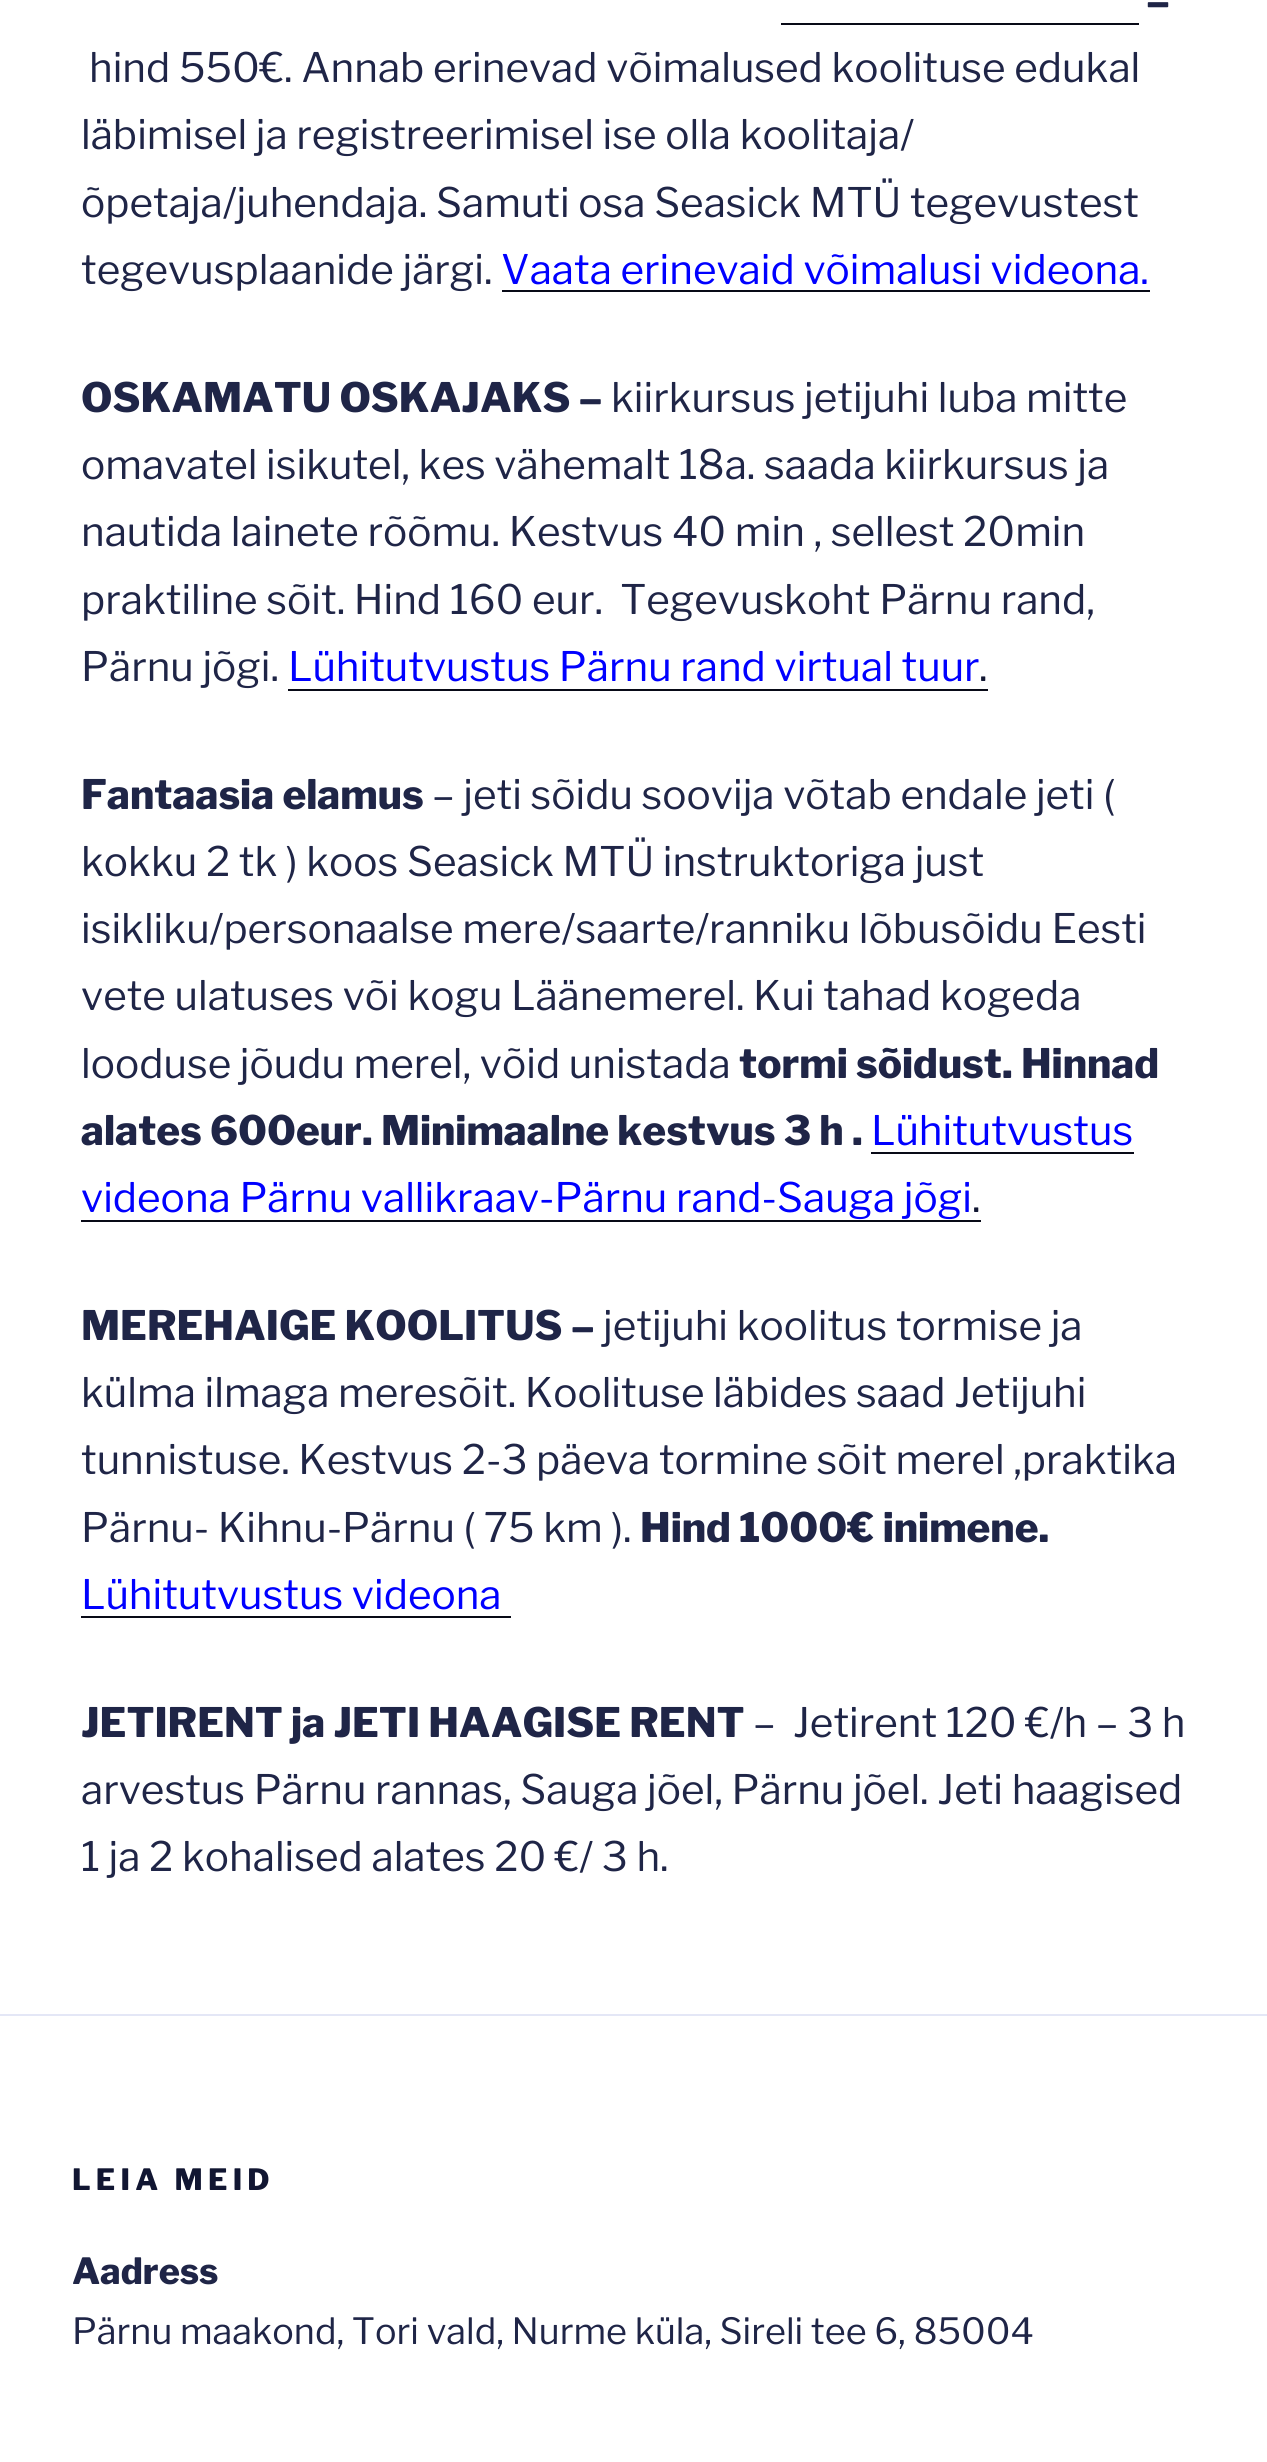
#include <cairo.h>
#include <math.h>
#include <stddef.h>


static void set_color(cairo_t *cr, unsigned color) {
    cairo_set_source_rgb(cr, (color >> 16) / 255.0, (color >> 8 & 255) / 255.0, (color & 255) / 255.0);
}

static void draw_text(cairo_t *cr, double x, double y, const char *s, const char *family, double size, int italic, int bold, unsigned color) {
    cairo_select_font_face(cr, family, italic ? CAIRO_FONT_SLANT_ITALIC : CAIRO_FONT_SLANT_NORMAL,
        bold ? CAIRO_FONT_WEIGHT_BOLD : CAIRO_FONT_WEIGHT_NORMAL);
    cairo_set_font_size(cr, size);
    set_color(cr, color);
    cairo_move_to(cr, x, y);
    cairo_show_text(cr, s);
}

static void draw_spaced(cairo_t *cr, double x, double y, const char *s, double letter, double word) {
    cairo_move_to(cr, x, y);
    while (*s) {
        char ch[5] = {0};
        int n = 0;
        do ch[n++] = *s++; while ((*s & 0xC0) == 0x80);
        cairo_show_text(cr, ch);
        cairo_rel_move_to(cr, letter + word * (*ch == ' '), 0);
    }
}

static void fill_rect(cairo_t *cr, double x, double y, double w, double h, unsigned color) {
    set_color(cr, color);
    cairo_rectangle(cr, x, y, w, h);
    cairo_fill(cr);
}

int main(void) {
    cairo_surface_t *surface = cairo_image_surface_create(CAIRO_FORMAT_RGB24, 1267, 2462);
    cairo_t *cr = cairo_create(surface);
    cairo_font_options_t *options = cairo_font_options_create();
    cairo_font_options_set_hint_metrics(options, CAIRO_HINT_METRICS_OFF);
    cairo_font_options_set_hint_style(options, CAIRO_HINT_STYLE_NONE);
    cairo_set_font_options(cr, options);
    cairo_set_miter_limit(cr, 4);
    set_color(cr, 0xFFFFFF);
    cairo_paint(cr);
    draw_text(cr, 1146, 15, "–", "Libre Franklin Thin", 40.5, 0, 0, 0x1F2547);
    fill_rect(cr, 781, 23, 358, 2, 0x080A17);
    draw_text(cr, 89, 82, "hind 550€. Annab erinevad võimalused koolituse edukal", "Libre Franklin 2 Thin", 40.5, 0, 0, 0x1F2547);
    draw_text(cr, 81, 149, "läbimisel ja registreerimisel ise olla koolitaja/", "Libre Franklin 2 Thin", 40.5, 0, 0, 0x1F2547);
    draw_text(cr, 81, 217, "õpetaja/juhendaja. Samuti osa Seasick MTÜ tegevustest", "Libre Franklin 2 Thin", 40.5, 0, 0, 0x1F2547);
    draw_text(cr, 81, 284, "tegevusplaanide järgi.", "Libre Franklin 2 Thin", 40.5, 0, 0, 0x1F2547);
    draw_text(cr, 501, 284, "Vaata erinevaid võimalusi videona.", "Libre Franklin 2 Thin", 40.5, 0, 0, 0x0000FF);
    fill_rect(cr, 502, 290, 648, 2, 0x080A17);
    draw_text(cr, 81, 412, "OSKAMATU OSKAJAKS –", "Libre Franklin Thin", 40.5, 0, 0, 0x1F2547);
    draw_text(cr, 611, 412, "kiirkursus jetijuhi luba mitte", "Libre Franklin 2 Thin", 40.5, 0, 0, 0x1F2547);
    draw_text(cr, 81, 479, "omavatel isikutel, kes vähemalt 18a. saada kiirkursus ja", "Libre Franklin 2 Thin", 40.5, 0, 0, 0x1F2547);
    draw_text(cr, 81, 546, "nautida lainete rõõmu. Kestvus 40 min , sellest 20min", "Libre Franklin 2 Thin", 40.5, 0, 0, 0x1F2547);
    draw_text(cr, 81, 614, "praktiline sõit. Hind 160 eur.  Tegevuskoht Pärnu rand,", "Libre Franklin 2 Thin", 40.5, 0, 0, 0x1F2547);
    draw_text(cr, 81, 681, "Pärnu jõgi.", "Libre Franklin 2 Thin", 40.5, 0, 0, 0x1F2547);
    draw_text(cr, 288, 681, "Lühitutvustus Pärnu rand virtual tuur", "Libre Franklin 2 Thin", 40.5, 0, 0, 0x0000FF);
    draw_text(cr, 979, 681, ".", "Libre Franklin 2 Thin", 40.5, 0, 0, 0x111632);
    fill_rect(cr, 288, 689, 700, 2, 0x080A17);
    draw_text(cr, 81, 809, "Fantaasia elamus", "Libre Franklin Thin", 40.5, 0, 0, 0x1F2547);
    draw_text(cr, 432, 809, "– jeti sõidu soovija võtab endale jeti (", "Libre Franklin 2 Thin", 40.5, 0, 0, 0x1F2547);
    draw_text(cr, 81, 876, "kokku 2 tk ) koos Seasick MTÜ instruktoriga just", "Libre Franklin 2 Thin", 40.5, 0, 0, 0x1F2547);
    draw_text(cr, 81, 943, "isikliku/personaalse mere/saarte/ranniku lõbusõidu Eesti", "Libre Franklin 2 Thin", 40.5, 0, 0, 0x1F2547);
    draw_text(cr, 81, 1010, "vete ulatuses või kogu Läänemerel. Kui tahad kogeda", "Libre Franklin 2 Thin", 40.5, 0, 0, 0x1F2547);
    draw_text(cr, 81, 1078, "looduse jõudu merel, võid unistada", "Libre Franklin 2 Thin", 40.5, 0, 0, 0x1F2547);
    draw_text(cr, 739, 1078, "tormi sõidust. Hinnad", "Libre Franklin Thin", 40.5, 0, 0, 0x1F2547);
    draw_text(cr, 81, 1145, "alates 600eur. Minimaalne kestvus 3 h .", "Libre Franklin Thin", 40.5, 0, 0, 0x1F2547);
    draw_text(cr, 871, 1145, "Lühitutvustus", "Libre Franklin 2 Thin", 40.5, 0, 0, 0x0000FF);
    fill_rect(cr, 871, 1152, 263, 2, 0x080A17);
    draw_text(cr, 81, 1212, "videona Pärnu vallikraav-Pärnu rand-Sauga jõgi", "Libre Franklin 2 Thin", 40.5, 0, 0, 0x0000FF);
    draw_text(cr, 972, 1212, ".", "Libre Franklin 2 Thin", 40.5, 0, 0, 0x111632);
    fill_rect(cr, 81, 1220, 900, 2, 0x080A17);
    draw_text(cr, 81, 1340, "MEREHAIGE KOOLITUS –", "Libre Franklin Thin", 40.5, 0, 0, 0x1F2547);
    draw_text(cr, 603, 1340, "jetijuhi koolitus tormise ja", "Libre Franklin 2 Thin", 40.5, 0, 0, 0x1F2547);
    draw_text(cr, 81, 1407, "külma ilmaga meresõit. Koolituse läbides saad Jetijuhi", "Libre Franklin 2 Thin", 40.5, 0, 0, 0x1F2547);
    draw_text(cr, 81, 1474, "tunnistuse. Kestvus 2-3 päeva tormine sõit merel ,praktika", "Libre Franklin 2 Thin", 40.5, 0, 0, 0x1F2547);
    draw_text(cr, 81, 1542, "Pärnu- Kihnu-Pärnu ( 75 km ).", "Libre Franklin 2 Thin", 40.5, 0, 0, 0x1F2547);
    draw_text(cr, 640, 1542, "Hind 1000€ inimene.", "Libre Franklin Thin", 40.5, 0, 0, 0x1F2547);
    draw_text(cr, 81, 1609, "Lühitutvustus videona", "Libre Franklin 2 Thin", 40.5, 0, 0, 0x0000FF);
    fill_rect(cr, 81, 1616, 430, 2, 0x080A17);
    draw_text(cr, 81, 1737, "JETIRENT ja JETI HAAGISE RENT", "Libre Franklin Thin", 40.5, 0, 0, 0x1F2547);
    draw_text(cr, 753, 1737, "–  Jetirent 120 €/h – 3 h", "Libre Franklin 2 Thin", 40.5, 0, 0, 0x1F2547);
    draw_text(cr, 81, 1804, "arvestus Pärnu rannas, Sauga jõel, Pärnu jõel. Jeti haagised", "Libre Franklin 2 Thin", 40.5, 0, 0, 0x1F2547);
    draw_text(cr, 81, 1871, "1 ja 2 kohalised alates 20 €/ 3 h.", "Libre Franklin 2 Thin", 40.5, 0, 0, 0x1F2547);
    fill_rect(cr, 0, 2014, 1267, 2, 0xE4E7F6);
    cairo_select_font_face(cr, "Libre Franklin Thin", CAIRO_FONT_SLANT_NORMAL, CAIRO_FONT_WEIGHT_NORMAL);
    cairo_set_font_size(cr, 29.25);
    set_color(cr, 0x111632);
    draw_spaced(cr, 72, 2190, "LEIA MEID", 5.25, 0);
    draw_text(cr, 72, 2284, "Aadress", "Libre Franklin Thin", 36, 0, 0, 0x1F2547);
    draw_text(cr, 72, 2344, "Pärnu maakond, Tori vald, Nurme küla, Sireli tee 6, 85004", "Libre Franklin 2 Thin", 36, 0, 0, 0x1F2547);
    cairo_surface_write_to_png(surface, "output.png");
    cairo_font_options_destroy(options);
    cairo_destroy(cr);
    cairo_surface_destroy(surface);
    return 0;
}
